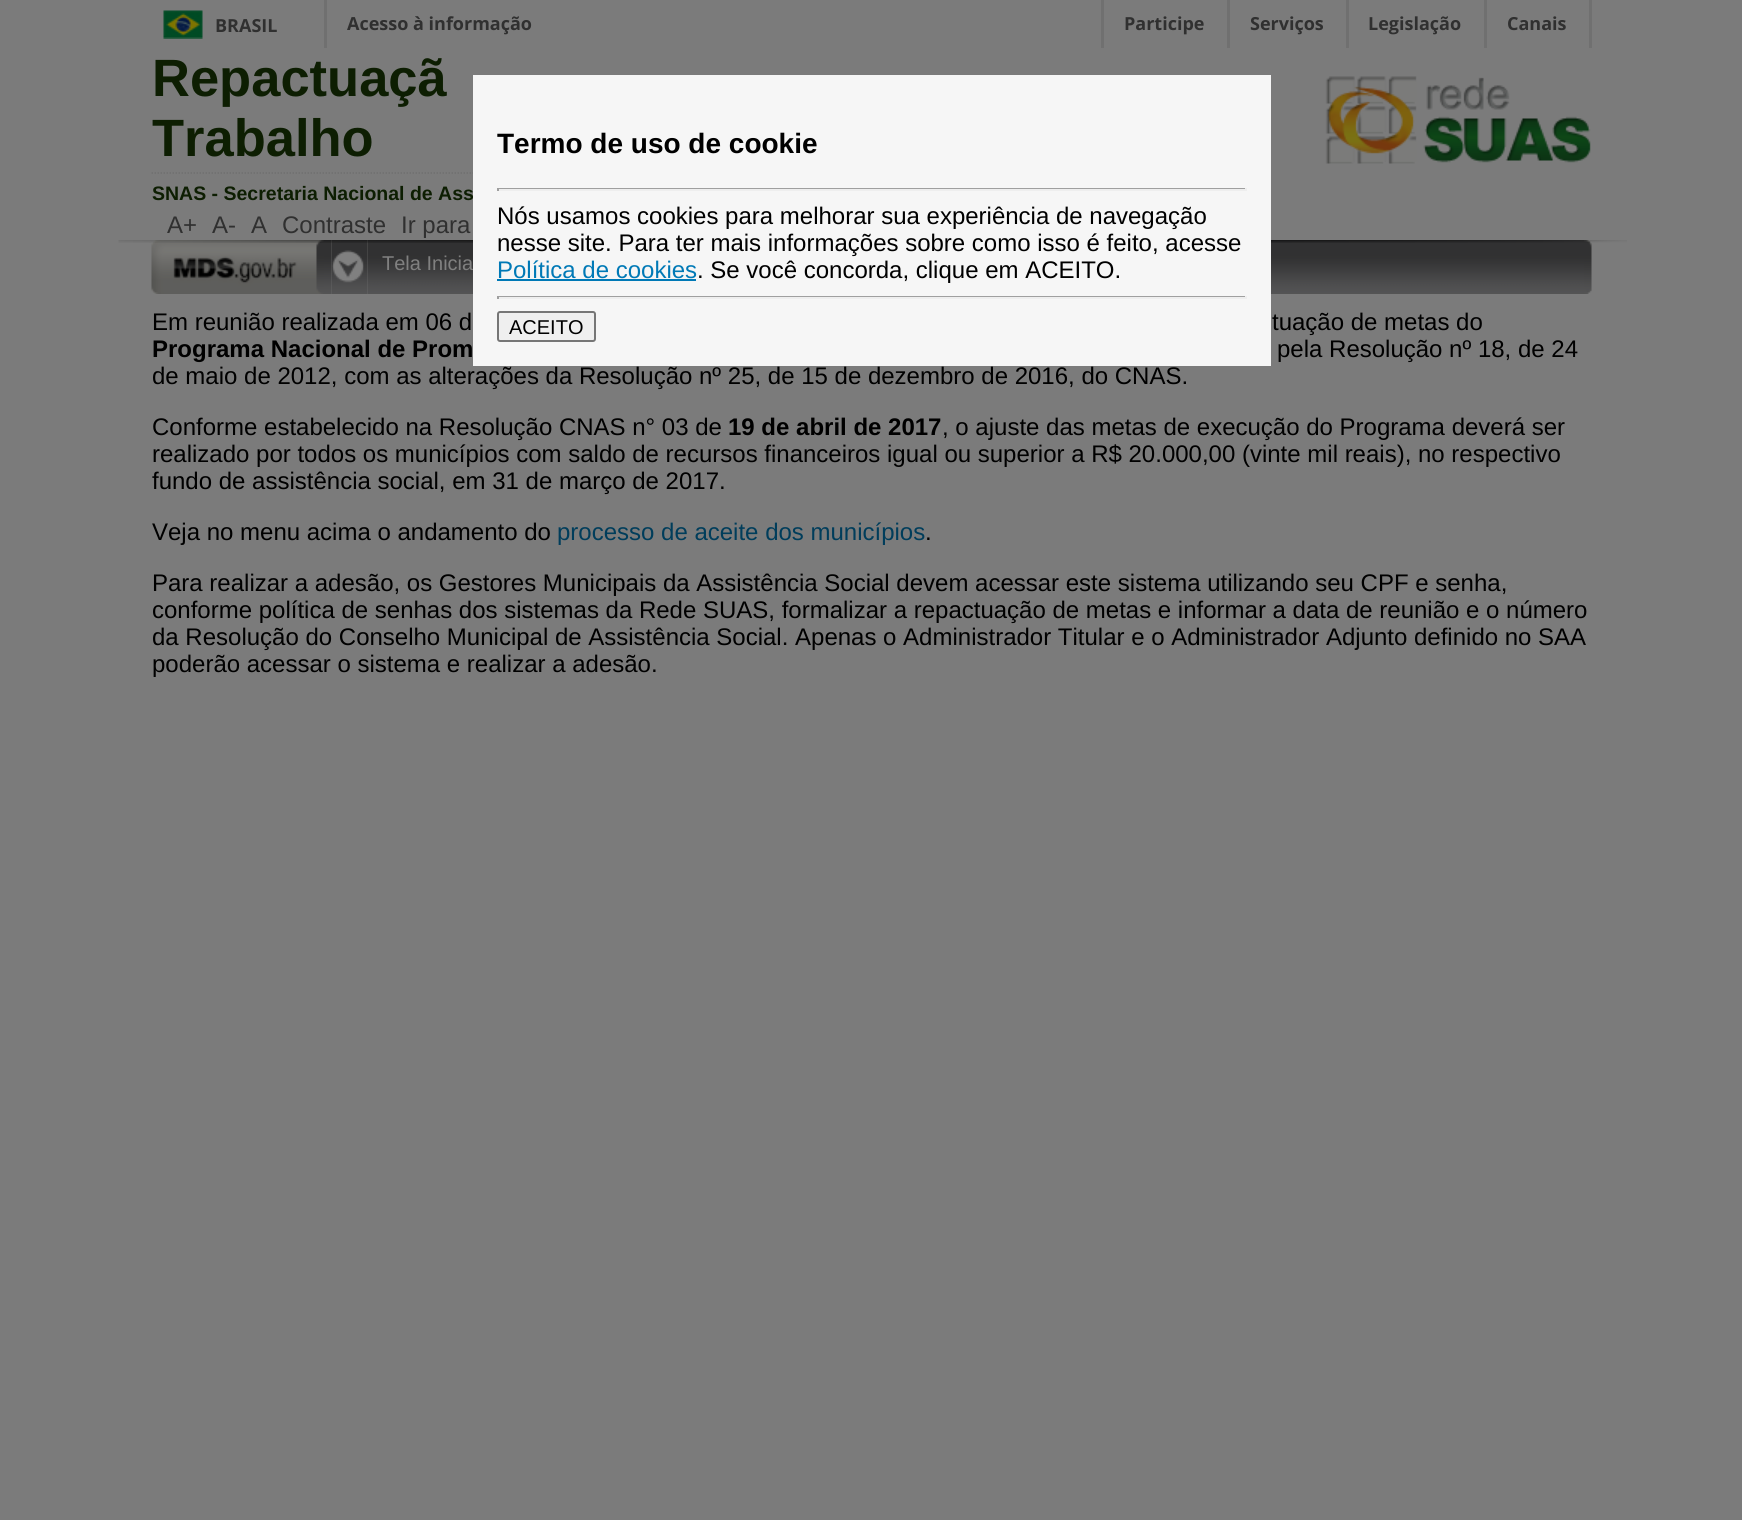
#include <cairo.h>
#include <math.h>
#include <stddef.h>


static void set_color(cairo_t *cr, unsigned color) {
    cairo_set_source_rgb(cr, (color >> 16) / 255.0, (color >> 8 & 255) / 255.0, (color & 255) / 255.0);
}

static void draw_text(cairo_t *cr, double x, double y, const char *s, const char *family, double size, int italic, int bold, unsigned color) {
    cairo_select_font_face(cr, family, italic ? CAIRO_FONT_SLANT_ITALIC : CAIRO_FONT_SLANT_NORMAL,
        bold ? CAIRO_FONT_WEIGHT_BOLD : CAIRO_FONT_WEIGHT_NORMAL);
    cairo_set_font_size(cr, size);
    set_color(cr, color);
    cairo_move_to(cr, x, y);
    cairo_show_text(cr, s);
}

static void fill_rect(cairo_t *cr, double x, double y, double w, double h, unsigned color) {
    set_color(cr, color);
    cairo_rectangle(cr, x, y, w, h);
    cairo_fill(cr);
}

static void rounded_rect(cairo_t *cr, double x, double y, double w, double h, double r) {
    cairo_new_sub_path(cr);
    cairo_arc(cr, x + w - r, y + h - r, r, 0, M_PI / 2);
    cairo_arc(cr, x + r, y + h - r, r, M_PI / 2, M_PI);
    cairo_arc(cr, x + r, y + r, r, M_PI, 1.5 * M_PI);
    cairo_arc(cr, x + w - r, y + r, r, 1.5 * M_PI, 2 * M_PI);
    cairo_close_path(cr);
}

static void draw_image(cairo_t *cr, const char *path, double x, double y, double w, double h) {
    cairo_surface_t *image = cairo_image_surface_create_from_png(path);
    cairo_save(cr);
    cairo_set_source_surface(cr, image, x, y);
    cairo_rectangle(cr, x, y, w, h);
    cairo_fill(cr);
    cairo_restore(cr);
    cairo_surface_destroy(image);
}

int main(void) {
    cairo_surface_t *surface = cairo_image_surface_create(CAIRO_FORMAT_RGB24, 1742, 1520);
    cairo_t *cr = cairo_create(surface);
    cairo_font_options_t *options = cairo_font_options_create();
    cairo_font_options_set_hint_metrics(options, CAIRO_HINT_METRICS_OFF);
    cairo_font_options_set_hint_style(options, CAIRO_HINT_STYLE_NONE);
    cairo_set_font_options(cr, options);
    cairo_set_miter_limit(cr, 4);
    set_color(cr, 0x7B7B7B);
    cairo_paint(cr);
    fill_rect(cr, 324, 0, 3, 48, 0x707070);
    draw_image(cr, "assets/img1.png", 163, 10, 40, 29);
    draw_text(cr, 215, 32, "BRASIL", "Open Sans", 18, 0, 1, 0x303030);
    draw_text(cr, 347, 30, "Acesso à informação", "Open Sans", 18, 0, 1, 0x303030);
    fill_rect(cr, 1227, 0, 3, 48, 0x707070);
    fill_rect(cr, 1101, 0, 3, 48, 0x707070);
    draw_text(cr, 1124, 30, "Participe", "Open Sans", 18, 0, 1, 0x303030);
    fill_rect(cr, 1346, 0, 3, 48, 0x707070);
    draw_text(cr, 1250, 30, "Serviços", "Open Sans", 18, 0, 1, 0x303030);
    fill_rect(cr, 1484, 0, 3, 48, 0x707070);
    draw_text(cr, 1368, 30, "Legislação", "Open Sans", 18, 0, 1, 0x303030);
    fill_rect(cr, 1589, 0, 3, 48, 0x707070);
    draw_text(cr, 1507, 30, "Canais", "Open Sans", 18, 0, 1, 0x303030);
    draw_text(cr, 152, 96, "Repactuaçã", "Liberation Sans", 52.5, 0, 1, 0x0D1E02);
    draw_text(cr, 152, 156, "Trabalho", "Liberation Sans", 52.5, 0, 1, 0x0D1E02);
    cairo_new_path(cr);
    cairo_move_to(cr, 151.5, 173);
    cairo_line_to(cr, 1201.5, 173);
    set_color(cr, 0x6F6F6F);
    cairo_set_line_width(cr, 1.5);
    cairo_set_dash(cr, (double[]){1.5, 1.5}, 2, 0);
    cairo_stroke(cr);
    draw_text(cr, 152, 200, "SNAS - Secretaria Nacional de Ass", "Liberation Sans", 19.5, 0, 1, 0x0D1E02);
    draw_text(cr, 167, 233, "A+", "Liberation Sans", 24, 0, 0, 0x303030);
    draw_text(cr, 212, 233, "A-", "Liberation Sans", 24, 0, 0, 0x303030);
    draw_text(cr, 251, 233, "A", "Liberation Sans", 24, 0, 0, 0x303030);
    draw_text(cr, 282, 233, "Contraste", "Liberation Sans", 24, 0, 0, 0x303030);
    draw_text(cr, 401, 233, "Ir para", "Liberation Sans", 24, 0, 0, 0x303030);
    draw_image(cr, "assets/img2.png", 1325, 76, 266, 88);
    draw_image(cr, "assets/img4.png", 151, 240, 173, 54);
    draw_image(cr, "assets/img5.png", 324, 240, 8, 54);
    draw_image(cr, "assets/img6.png", 331, 240, 37, 54);
    draw_image(cr, "assets/img8.png", 367, 240, 1217, 54);
    draw_image(cr, "assets/img9.png", 1584, 240, 8, 54);
    draw_image(cr, "assets/img3.png", 118, 240, 1509, 3);
    draw_text(cr, 382, 270, "Tela Inicia", "Liberation Sans", 20, 0, 0, 0x808080);
    fill_rect(cr, 473, 75, 798, 291, 0xF6F6F6);
    draw_text(cr, 497, 153, "Termo de uso de cookie", "Liberation Sans", 28, 0, 1, 0x000000);
    fill_rect(cr, 497, 188, 750, 1, 0x9F9F9F);
    fill_rect(cr, 1245, 188, 2, 3, 0xEEEEEE);
    fill_rect(cr, 497, 189, 750, 2, 0xEEEEEE);
    fill_rect(cr, 497, 188, 2, 3, 0x9F9F9F);
    draw_text(cr, 497, 224, "Nós usamos cookies para melhorar sua experiência de navegação", "Liberation Sans", 24, 0, 0, 0x000000);
    draw_text(cr, 497, 251, "nesse site. Para ter mais informações sobre como isso é feito, acesse", "Liberation Sans", 24, 0, 0, 0x000000);
    draw_text(cr, 497, 278, "Política de cookies", "Liberation Sans", 24, 0, 0, 0x0079B6);
    fill_rect(cr, 497, 279, 199, 2, 0x0079B6);
    draw_text(cr, 697, 278, ". Se você concorda, clique em ACEITO.", "Liberation Sans", 24, 0, 0, 0x000000);
    fill_rect(cr, 497, 296, 750, 1, 0x9F9F9F);
    fill_rect(cr, 1245, 296, 2, 3, 0xEEEEEE);
    fill_rect(cr, 497, 297, 750, 2, 0xEEEEEE);
    fill_rect(cr, 497, 296, 2, 3, 0x9F9F9F);
    set_color(cr, 0xEFEFEF);
    rounded_rect(cr, 498, 312, 97, 29, 2);
    cairo_fill_preserve(cr);
    set_color(cr, 0x767676);
    cairo_set_line_width(cr, 2);
    cairo_set_dash(cr, NULL, 0, 0);
    cairo_stroke(cr);
    draw_text(cr, 509, 334, "ACEITO", "Liberation Sans", 20, 0, 0, 0x000000);
    draw_text(cr, 152, 330, "Em reunião realizada em 06 d", "Liberation Sans", 24, 0, 0, 0x000000);
    draw_text(cr, 1272, 330, "tuação de metas do", "Liberation Sans", 24, 0, 0, 0x000000);
    draw_text(cr, 152, 357, "Programa Nacional de Prom", "Liberation Sans", 24, 0, 1, 0x000000);
    draw_text(cr, 1277, 357, "pela Resolução nº 18, de 24", "Liberation Sans", 24, 0, 0, 0x000000);
    draw_text(cr, 152, 384, "de maio de 2012, com as alterações da Resolução nº 25, de 15 de dezembro de 2016, do CNAS.", "Liberation Sans", 24, 0, 0, 0x000000);
    draw_text(cr, 152, 435, "Conforme estabelecido na Resolução CNAS n° 03 de", "Liberation Sans", 24, 0, 0, 0x000000);
    draw_text(cr, 728, 435, "19 de abril de 2017", "Liberation Sans", 24, 0, 1, 0x000000);
    draw_text(cr, 942, 435, ", o ajuste das metas de execução do Programa deverá ser", "Liberation Sans", 24, 0, 0, 0x000000);
    draw_text(cr, 152, 462, "realizado por todos os municípios com saldo de recursos financeiros igual ou superior a R$ 20.000,00 (vinte mil reais), no respectivo", "Liberation Sans", 24, 0, 0, 0x000000);
    draw_text(cr, 152, 489, "fundo de assistência social, em 31 de março de 2017.", "Liberation Sans", 24, 0, 0, 0x000000);
    draw_text(cr, 152, 540, "Veja no menu acima o andamento do", "Liberation Sans", 24, 0, 0, 0x000000);
    draw_text(cr, 557, 540, "processo de aceite dos municípios", "Liberation Sans", 24, 0, 0, 0x003D5B);
    draw_text(cr, 925, 540, ".", "Liberation Sans", 24, 0, 0, 0x000000);
    draw_text(cr, 152, 591, "Para realizar a adesão, os Gestores Municipais da Assistência Social devem acessar este sistema utilizando seu CPF e senha,", "Liberation Sans", 24, 0, 0, 0x000000);
    draw_text(cr, 152, 618, "conforme política de senhas dos sistemas da Rede SUAS, formalizar a repactuação de metas e informar a data de reunião e o número", "Liberation Sans", 24, 0, 0, 0x000000);
    draw_text(cr, 152, 645, "da Resolução do Conselho Municipal de Assistência Social. Apenas o Administrador Titular e o Administrador Adjunto definido no SAA", "Liberation Sans", 24, 0, 0, 0x000000);
    draw_text(cr, 152, 672, "poderão acessar o sistema e realizar a adesão.", "Liberation Sans", 24, 0, 0, 0x000000);
    draw_image(cr, "assets/img7.png", 332, 250, 32, 33);
    cairo_surface_write_to_png(surface, "output.png");
    cairo_font_options_destroy(options);
    cairo_destroy(cr);
    cairo_surface_destroy(surface);
    return 0;
}
